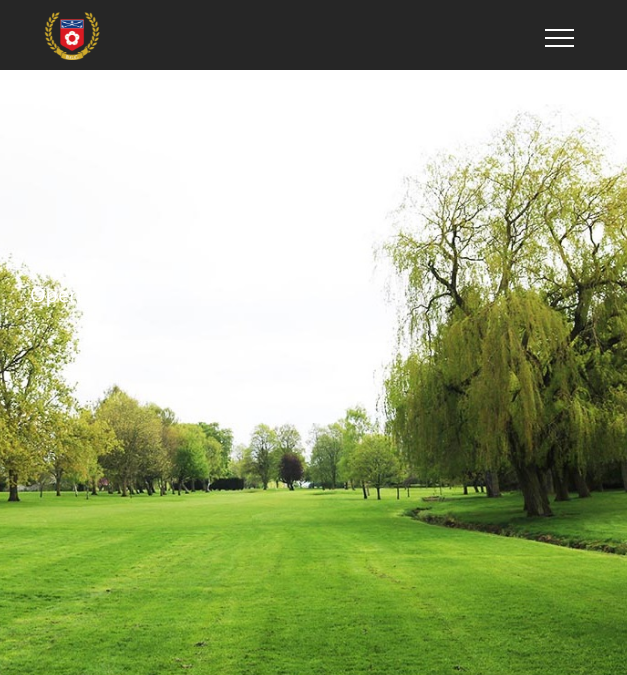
#include <cairo.h>
#include <math.h>
#include <stddef.h>


static void set_color(cairo_t *cr, unsigned color) {
    cairo_set_source_rgb(cr, (color >> 16) / 255.0, (color >> 8 & 255) / 255.0, (color & 255) / 255.0);
}

static void draw_text(cairo_t *cr, double x, double y, const char *s, const char *family, double size, int italic, int bold, unsigned color) {
    cairo_select_font_face(cr, family, italic ? CAIRO_FONT_SLANT_ITALIC : CAIRO_FONT_SLANT_NORMAL,
        bold ? CAIRO_FONT_WEIGHT_BOLD : CAIRO_FONT_WEIGHT_NORMAL);
    cairo_set_font_size(cr, size);
    set_color(cr, color);
    cairo_move_to(cr, x, y);
    cairo_show_text(cr, s);
}

static void fill_rect(cairo_t *cr, double x, double y, double w, double h, unsigned color) {
    set_color(cr, color);
    cairo_rectangle(cr, x, y, w, h);
    cairo_fill(cr);
}

static void draw_image(cairo_t *cr, const char *path, double x, double y, double w, double h) {
    cairo_surface_t *image = cairo_image_surface_create_from_png(path);
    cairo_save(cr);
    cairo_set_source_surface(cr, image, x, y);
    cairo_rectangle(cr, x, y, w, h);
    cairo_fill(cr);
    cairo_restore(cr);
    cairo_surface_destroy(image);
}

int main(void) {
    cairo_surface_t *surface = cairo_image_surface_create(CAIRO_FORMAT_RGB24, 627, 675);
    cairo_t *cr = cairo_create(surface);
    cairo_font_options_t *options = cairo_font_options_create();
    cairo_font_options_set_hint_metrics(options, CAIRO_HINT_METRICS_OFF);
    cairo_font_options_set_hint_style(options, CAIRO_HINT_STYLE_NONE);
    cairo_set_font_options(cr, options);
    cairo_set_miter_limit(cr, 4);
    set_color(cr, 0xFFFFFF);
    cairo_paint(cr);
    fill_rect(cr, 0, 0, 627, 70, 0x262626);
    draw_image(cr, "assets/img1.png", 44, 12, 56, 48);
    fill_rect(cr, 545, 29, 29, 2, 0xFFFFFF);
    fill_rect(cr, 545, 37, 29, 2, 0xFFFFFF);
    fill_rect(cr, 545, 45, 29, 2, 0xFFFFFF);
    draw_image(cr, "assets/img2.png", 0, 104, 627, 571);
    draw_text(cr, 30, 302, "Open", "Noto Sans", 20, 0, 0, 0xFFFFFF);
    cairo_surface_write_to_png(surface, "output.png");
    cairo_font_options_destroy(options);
    cairo_destroy(cr);
    cairo_surface_destroy(surface);
    return 0;
}
